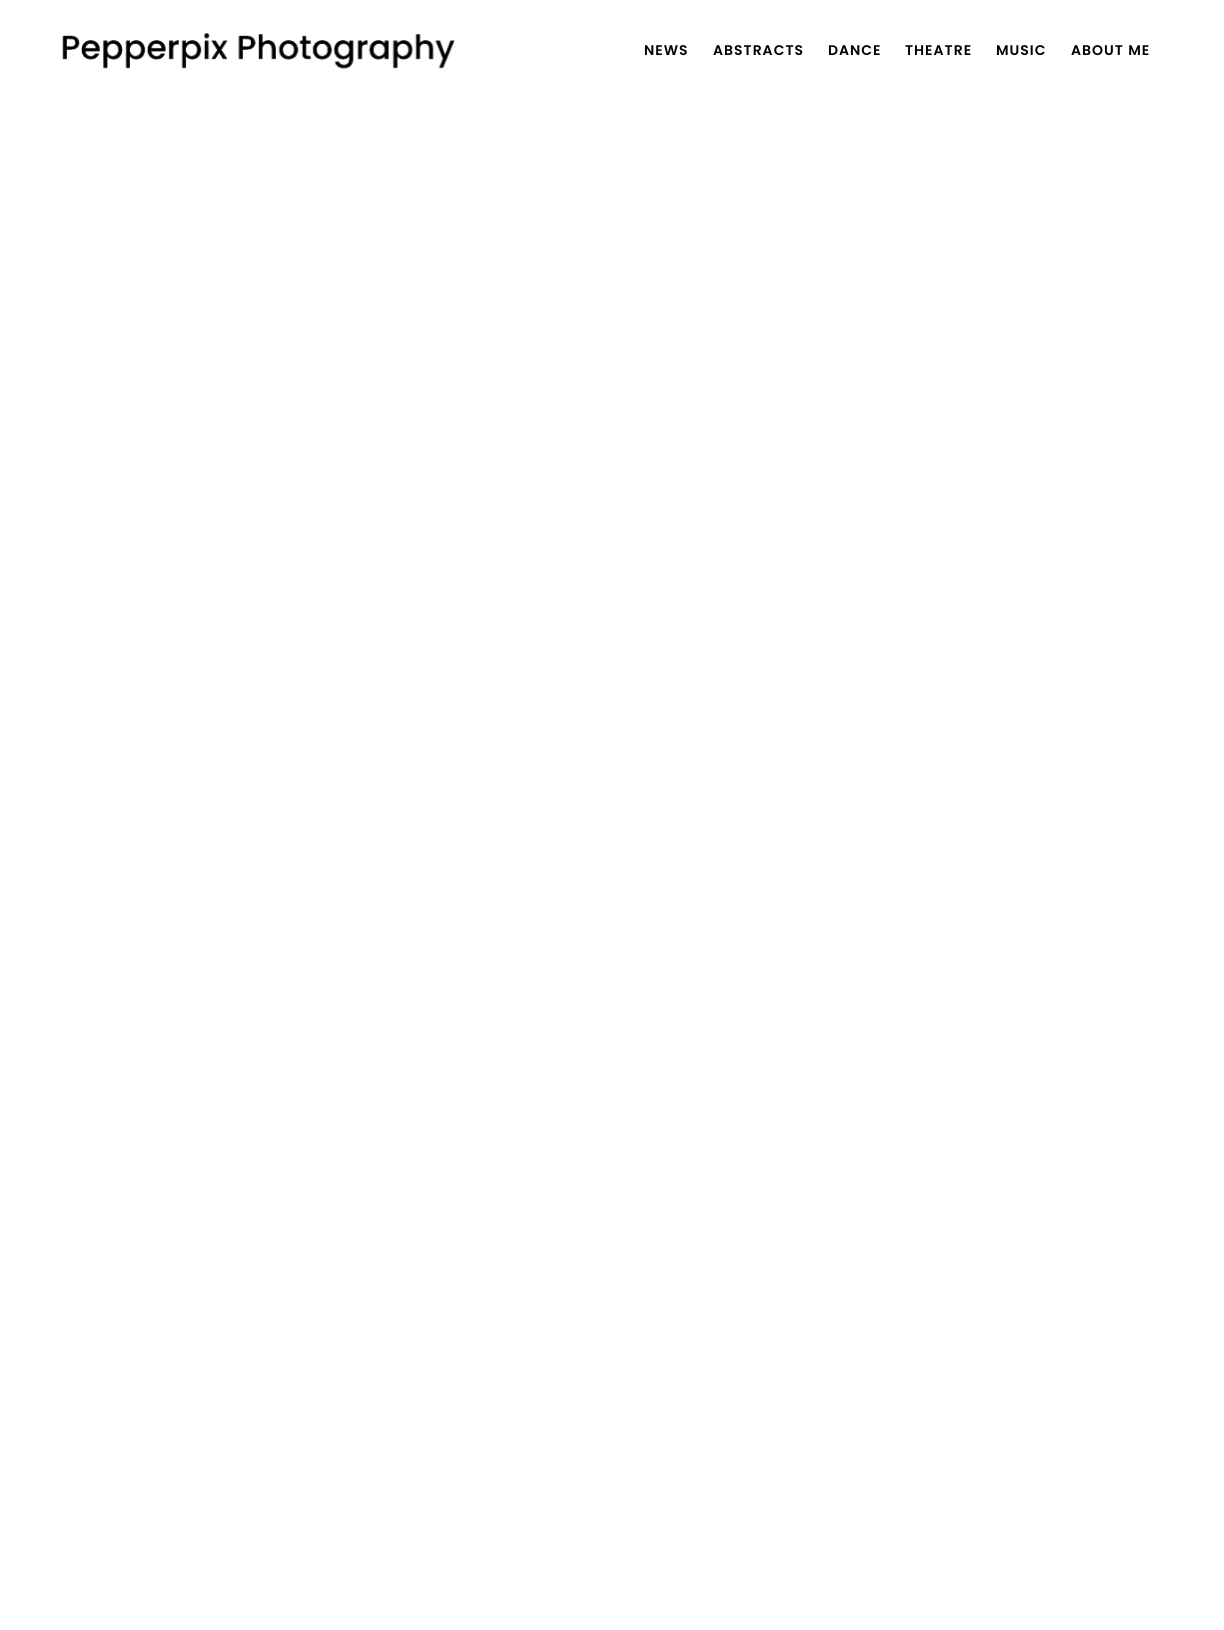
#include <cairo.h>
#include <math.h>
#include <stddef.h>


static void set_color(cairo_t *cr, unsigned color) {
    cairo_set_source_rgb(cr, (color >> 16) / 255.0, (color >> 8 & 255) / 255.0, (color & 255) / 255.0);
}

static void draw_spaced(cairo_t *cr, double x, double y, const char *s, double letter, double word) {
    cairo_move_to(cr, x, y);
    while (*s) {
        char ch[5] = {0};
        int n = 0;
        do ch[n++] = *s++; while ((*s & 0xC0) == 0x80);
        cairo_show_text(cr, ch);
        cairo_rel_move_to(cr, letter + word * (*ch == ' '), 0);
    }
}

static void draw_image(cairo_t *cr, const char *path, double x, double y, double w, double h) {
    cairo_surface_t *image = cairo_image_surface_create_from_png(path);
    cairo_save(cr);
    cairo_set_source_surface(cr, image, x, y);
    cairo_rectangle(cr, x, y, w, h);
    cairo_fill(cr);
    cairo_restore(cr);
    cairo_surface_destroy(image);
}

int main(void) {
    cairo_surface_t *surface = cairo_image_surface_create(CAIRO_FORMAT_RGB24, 1224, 1630);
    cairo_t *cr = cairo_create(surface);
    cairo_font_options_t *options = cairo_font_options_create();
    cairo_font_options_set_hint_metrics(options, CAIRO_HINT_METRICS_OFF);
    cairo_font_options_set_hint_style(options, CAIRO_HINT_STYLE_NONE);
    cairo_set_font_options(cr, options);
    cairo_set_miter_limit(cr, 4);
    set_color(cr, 0xFFFFFF);
    cairo_paint(cr);
    draw_image(cr, "assets/img1.png", 62, 33, 393, 36);
    cairo_select_font_face(cr, "Poppins SemiBold", CAIRO_FONT_SLANT_NORMAL, CAIRO_FONT_WEIGHT_NORMAL);
    cairo_set_font_size(cr, 14);
    set_color(cr, 0x000000);
    draw_spaced(cr, 644, 55, "NEWS", 1, 0);
    draw_spaced(cr, 713, 55, "ABSTRACTS", 1, 0);
    draw_spaced(cr, 828, 55, "DANCE", 1, 0);
    draw_spaced(cr, 905, 55, "THEATRE", 1, 0);
    draw_spaced(cr, 996, 55, "MUSIC", 1, 0);
    draw_spaced(cr, 1071, 55, "ABOUT ME", 1, 0);
    cairo_surface_write_to_png(surface, "output.png");
    cairo_font_options_destroy(options);
    cairo_destroy(cr);
    cairo_surface_destroy(surface);
    return 0;
}
